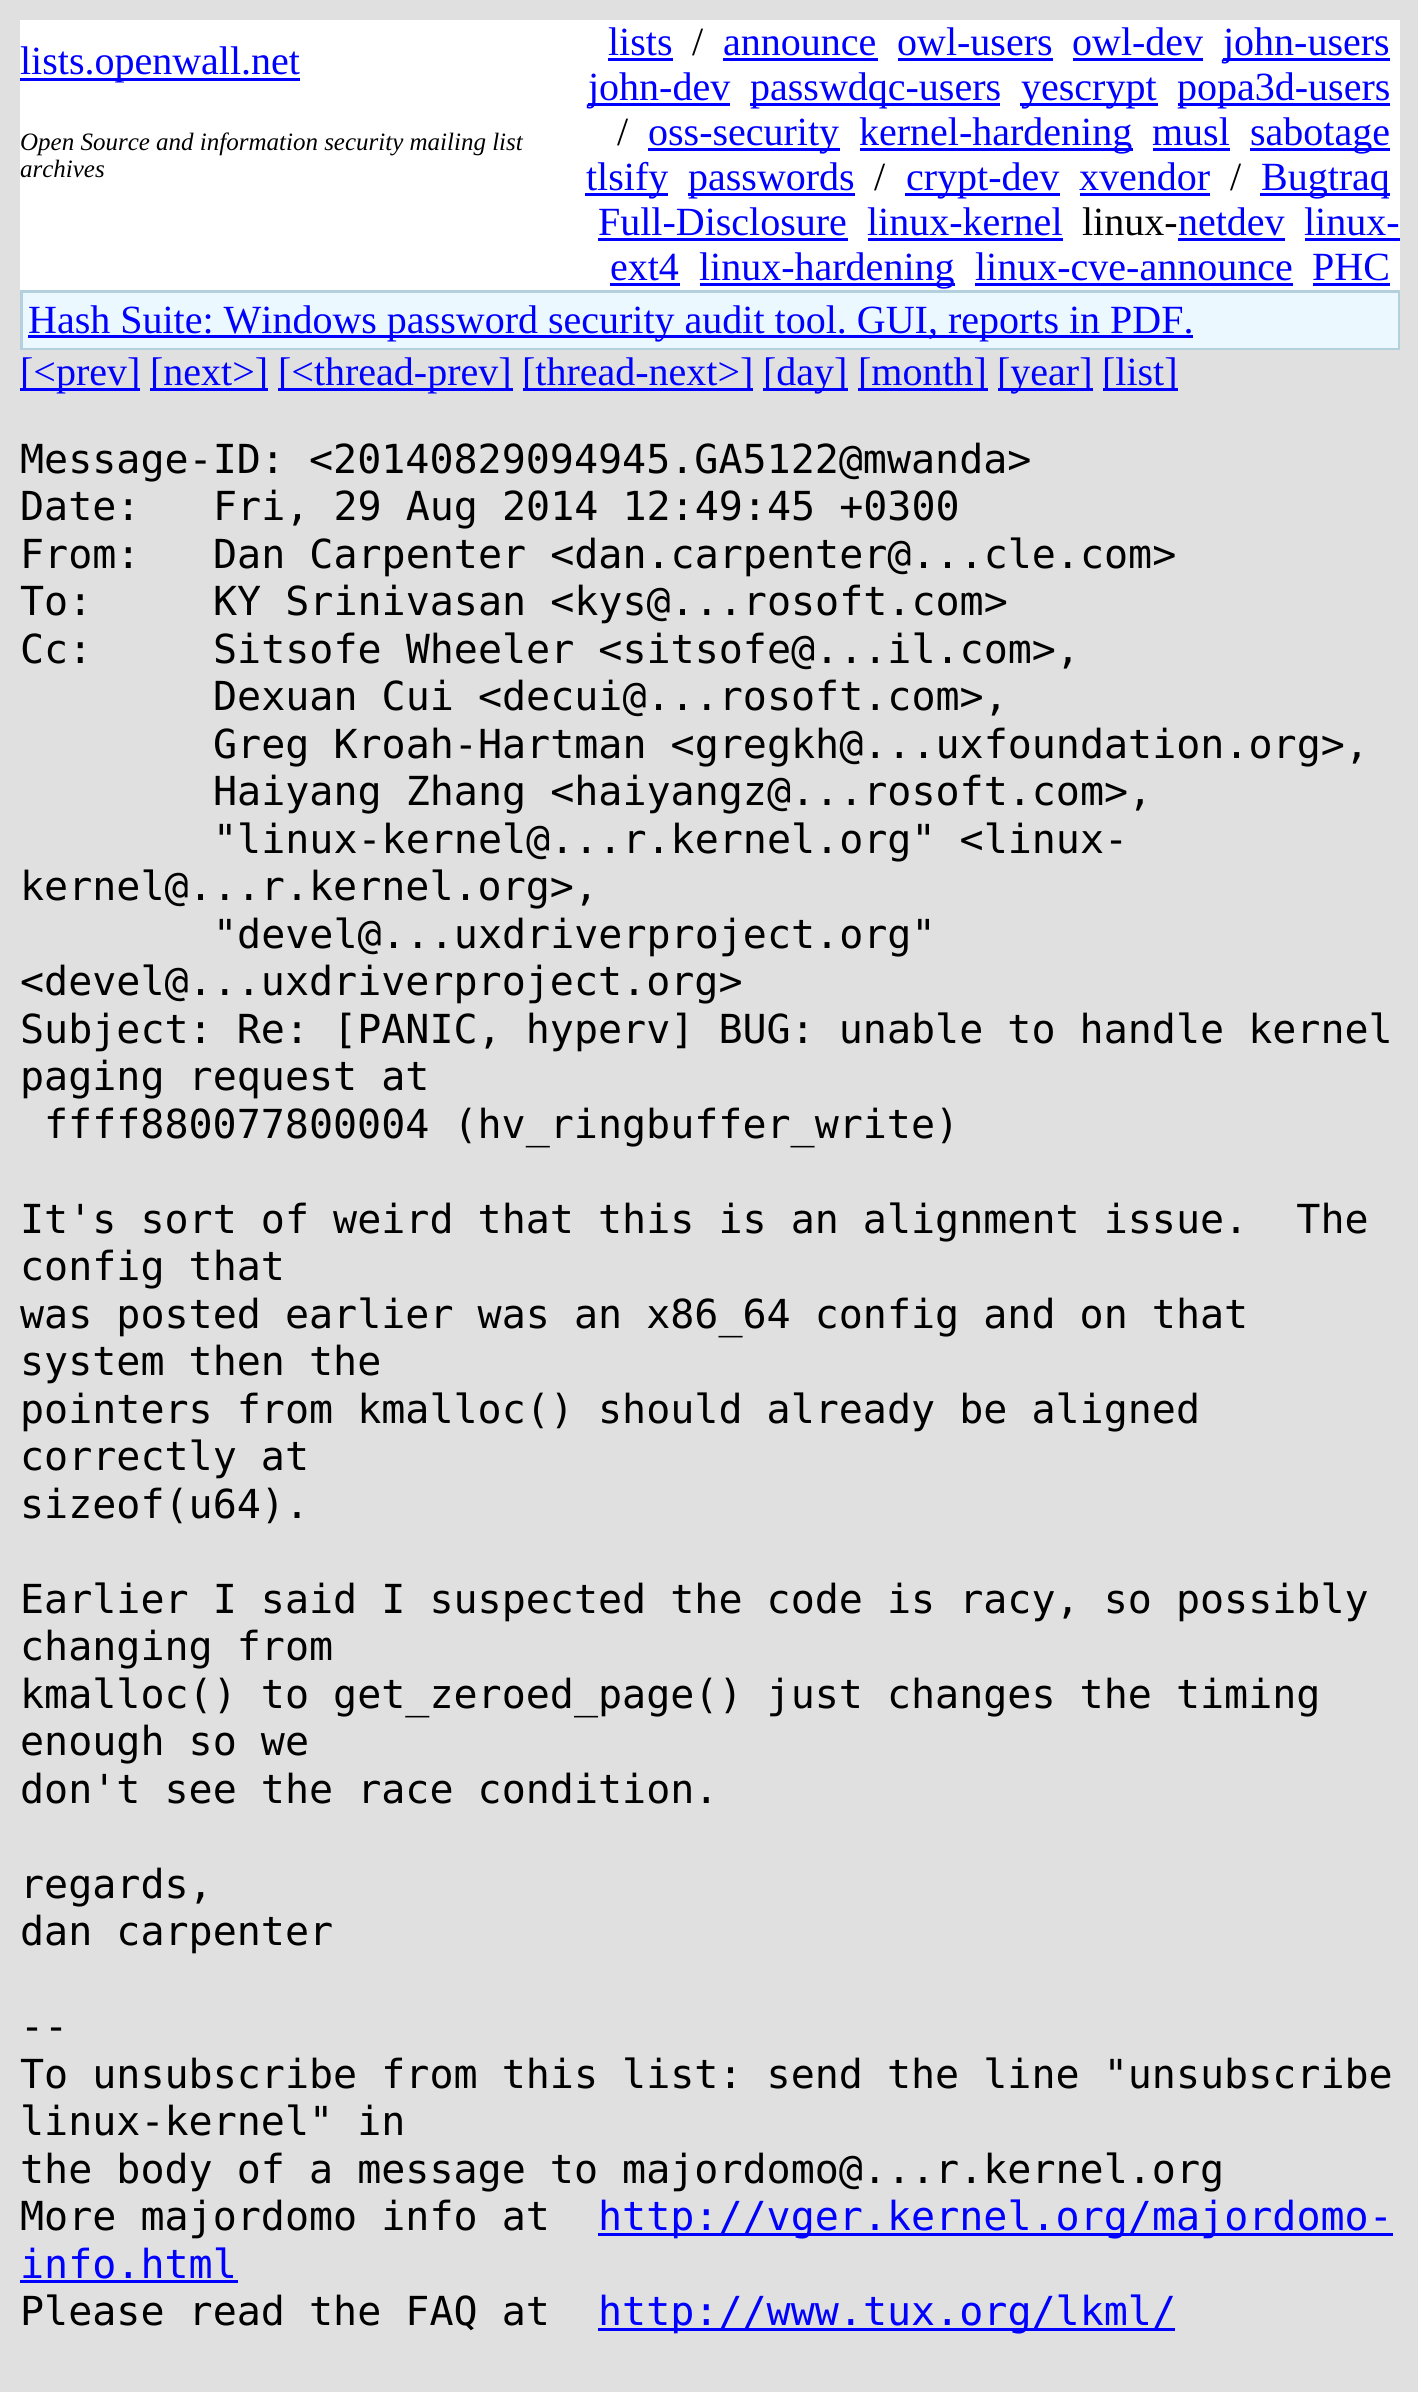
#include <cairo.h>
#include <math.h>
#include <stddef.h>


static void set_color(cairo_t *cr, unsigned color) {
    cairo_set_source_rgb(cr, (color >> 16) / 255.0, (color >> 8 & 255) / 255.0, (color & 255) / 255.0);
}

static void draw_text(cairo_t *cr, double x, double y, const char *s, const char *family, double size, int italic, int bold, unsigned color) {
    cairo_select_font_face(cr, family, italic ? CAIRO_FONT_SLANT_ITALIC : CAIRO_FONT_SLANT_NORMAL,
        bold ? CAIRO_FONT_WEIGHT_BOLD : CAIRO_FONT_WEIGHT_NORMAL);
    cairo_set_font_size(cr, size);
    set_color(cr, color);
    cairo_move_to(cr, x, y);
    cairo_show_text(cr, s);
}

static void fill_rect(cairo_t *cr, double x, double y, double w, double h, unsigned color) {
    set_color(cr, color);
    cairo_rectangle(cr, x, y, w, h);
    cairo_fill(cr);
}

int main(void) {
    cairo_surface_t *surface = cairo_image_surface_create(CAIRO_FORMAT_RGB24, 1418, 2392);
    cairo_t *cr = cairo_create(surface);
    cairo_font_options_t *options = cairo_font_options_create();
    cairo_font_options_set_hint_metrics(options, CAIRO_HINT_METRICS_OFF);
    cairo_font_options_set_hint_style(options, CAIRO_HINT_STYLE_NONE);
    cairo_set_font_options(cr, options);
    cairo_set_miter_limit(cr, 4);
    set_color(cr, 0xE0E0E0);
    cairo_paint(cr);
    fill_rect(cr, 20, 20, 1380, 270, 0xFFFFFF);
    fill_rect(cr, 20, 78, 280, 3, 0x0000FF);
    draw_text(cr, 20, 74, "lists.openwall.net", "Liberation Serif", 40, 0, 0, 0x0000FF);
    draw_text(cr, 608, 55, "lists", "Liberation Serif", 40, 0, 0, 0x0000FF);
    fill_rect(cr, 608, 58, 65, 3, 0x0000FF);
    draw_text(cr, 692, 55, "/", "Liberation Serif", 40, 0, 0, 0x000000);
    draw_text(cr, 723, 55, "announce", "Liberation Serif", 40, 0, 0, 0x0000FF);
    fill_rect(cr, 723, 58, 155, 3, 0x0000FF);
    draw_text(cr, 897, 55, "owl-users", "Liberation Serif", 40, 0, 0, 0x0000FF);
    fill_rect(cr, 898, 58, 155, 3, 0x0000FF);
    draw_text(cr, 1072, 55, "owl-dev", "Liberation Serif", 40, 0, 0, 0x0000FF);
    fill_rect(cr, 1073, 58, 130, 3, 0x0000FF);
    fill_rect(cr, 1223, 58, 167, 3, 0x0000FF);
    draw_text(cr, 1223, 55, "john-users", "Liberation Serif", 40, 0, 0, 0x0000FF);
    fill_rect(cr, 588, 103, 142, 3, 0x0000FF);
    draw_text(cr, 588, 100, "john-dev", "Liberation Serif", 40, 0, 0, 0x0000FF);
    fill_rect(cr, 750, 103, 250, 3, 0x0000FF);
    draw_text(cr, 750, 100, "passwdqc-users", "Liberation Serif", 40, 0, 0, 0x0000FF);
    fill_rect(cr, 1020, 103, 138, 3, 0x0000FF);
    draw_text(cr, 1021, 100, "yescrypt", "Liberation Serif", 40, 0, 0, 0x0000FF);
    fill_rect(cr, 1178, 103, 212, 3, 0x0000FF);
    draw_text(cr, 1177, 100, "popa3d-users", "Liberation Serif", 40, 0, 0, 0x0000FF);
    draw_text(cr, 617, 145, "/", "Liberation Serif", 40, 0, 0, 0x000000);
    fill_rect(cr, 648, 148, 192, 3, 0x0000FF);
    draw_text(cr, 648, 145, "oss-security", "Liberation Serif", 40, 0, 0, 0x0000FF);
    fill_rect(cr, 860, 148, 273, 3, 0x0000FF);
    draw_text(cr, 859, 145, "kernel-hardening", "Liberation Serif", 40, 0, 0, 0x0000FF);
    draw_text(cr, 1152, 145, "musl", "Liberation Serif", 40, 0, 0, 0x0000FF);
    fill_rect(cr, 1153, 148, 77, 3, 0x0000FF);
    fill_rect(cr, 1250, 148, 140, 3, 0x0000FF);
    draw_text(cr, 1250, 145, "sabotage", "Liberation Serif", 40, 0, 0, 0x0000FF);
    fill_rect(cr, 585, 193, 83, 3, 0x0000FF);
    draw_text(cr, 586, 190, "tlsify", "Liberation Serif", 40, 0, 0, 0x0000FF);
    fill_rect(cr, 688, 193, 167, 3, 0x0000FF);
    draw_text(cr, 688, 190, "passwords", "Liberation Serif", 40, 0, 0, 0x0000FF);
    draw_text(cr, 874, 190, "/", "Liberation Serif", 40, 0, 0, 0x000000);
    fill_rect(cr, 905, 193, 155, 3, 0x0000FF);
    draw_text(cr, 906, 190, "crypt-dev", "Liberation Serif", 40, 0, 0, 0x0000FF);
    draw_text(cr, 1079, 190, "xvendor", "Liberation Serif", 40, 0, 0, 0x0000FF);
    fill_rect(cr, 1080, 193, 130, 3, 0x0000FF);
    draw_text(cr, 1230, 190, "/", "Liberation Serif", 40, 0, 0, 0x000000);
    fill_rect(cr, 1260, 193, 130, 3, 0x0000FF);
    draw_text(cr, 1261, 190, "Bugtraq", "Liberation Serif", 40, 0, 0, 0x0000FF);
    draw_text(cr, 598, 235, "Full-Disclosure", "Liberation Serif", 40, 0, 0, 0x0000FF);
    fill_rect(cr, 598, 238, 250, 3, 0x0000FF);
    draw_text(cr, 867, 235, "linux-kernel", "Liberation Serif", 40, 0, 0, 0x0000FF);
    fill_rect(cr, 868, 238, 195, 3, 0x0000FF);
    draw_text(cr, 1082, 235, "linux-", "Liberation Serif", 40, 0, 0, 0x000000);
    draw_text(cr, 1178, 235, "netdev", "Liberation Serif", 40, 0, 0, 0x0000FF);
    fill_rect(cr, 1178, 238, 107, 3, 0x0000FF);
    draw_text(cr, 1304, 235, "linux-", "Liberation Serif", 40, 0, 0, 0x0000FF);
    fill_rect(cr, 1305, 238, 95, 3, 0x0000FF);
    draw_text(cr, 610, 280, "ext4", "Liberation Serif", 40, 0, 0, 0x0000FF);
    fill_rect(cr, 610, 283, 70, 3, 0x0000FF);
    fill_rect(cr, 700, 283, 255, 3, 0x0000FF);
    draw_text(cr, 699, 280, "linux-hardening", "Liberation Serif", 40, 0, 0, 0x0000FF);
    draw_text(cr, 975, 280, "linux-cve-announce", "Liberation Serif", 40, 0, 0, 0x0000FF);
    fill_rect(cr, 975, 283, 318, 3, 0x0000FF);
    draw_text(cr, 1312, 280, "PHC", "Liberation Serif", 40, 0, 0, 0x0000FF);
    fill_rect(cr, 1313, 283, 77, 3, 0x0000FF);
    draw_text(cr, 20, 150, "Open Source and information security mailing list", "Liberation Serif", 25, 1, 0, 0x000000);
    draw_text(cr, 20, 177, "archives", "Liberation Serif", 25, 1, 0, 0x000000);
    fill_rect(cr, 20, 290, 1380, 60, 0xB4D0DC);
    fill_rect(cr, 23, 293, 1375, 55, 0xECF8FF);
    fill_rect(cr, 28, 335, 1165, 3, 0x0000FF);
    draw_text(cr, 28, 333, "Hash Suite: Windows password security audit tool. GUI, reports in PDF.", "Liberation Serif", 40, 0, 0, 0x0000FF);
    fill_rect(cr, 20, 388, 120, 3, 0x0000FF);
    draw_text(cr, 20, 385, "[<prev]", "Liberation Serif", 40, 0, 0, 0x0000FF);
    fill_rect(cr, 150, 388, 118, 3, 0x0000FF);
    draw_text(cr, 150, 385, "[next>]", "Liberation Serif", 40, 0, 0, 0x0000FF);
    fill_rect(cr, 278, 388, 235, 3, 0x0000FF);
    draw_text(cr, 278, 385, "[<thread-prev]", "Liberation Serif", 40, 0, 0, 0x0000FF);
    fill_rect(cr, 523, 388, 230, 3, 0x0000FF);
    draw_text(cr, 522, 385, "[thread-next>]", "Liberation Serif", 40, 0, 0, 0x0000FF);
    fill_rect(cr, 763, 388, 85, 3, 0x0000FF);
    draw_text(cr, 763, 385, "[day]", "Liberation Serif", 40, 0, 0, 0x0000FF);
    fill_rect(cr, 858, 388, 130, 3, 0x0000FF);
    draw_text(cr, 858, 385, "[month]", "Liberation Serif", 40, 0, 0, 0x0000FF);
    fill_rect(cr, 998, 388, 95, 3, 0x0000FF);
    draw_text(cr, 997, 385, "[year]", "Liberation Serif", 40, 0, 0, 0x0000FF);
    fill_rect(cr, 1103, 388, 75, 3, 0x0000FF);
    draw_text(cr, 1102, 385, "[list]", "Liberation Serif", 40, 0, 0, 0x0000FF);
    draw_text(cr, 20, 473, "Message-ID: <20140829094945.GA5122@mwanda>", "DejaVu Sans Mono", 40, 0, 0, 0x000000);
    draw_text(cr, 20, 520, "Date:", "DejaVu Sans Mono", 40, 0, 0, 0x000000);
    draw_text(cr, 213, 520, "Fri, 29 Aug 2014 12:49:45 +0300", "DejaVu Sans Mono", 40, 0, 0, 0x000000);
    draw_text(cr, 20, 568, "From:", "DejaVu Sans Mono", 40, 0, 0, 0x000000);
    draw_text(cr, 213, 568, "Dan Carpenter <dan.carpenter@...cle.com>", "DejaVu Sans Mono", 40, 0, 0, 0x000000);
    draw_text(cr, 20, 615, "To:", "DejaVu Sans Mono", 40, 0, 0, 0x000000);
    draw_text(cr, 213, 615, "KY Srinivasan <kys@...rosoft.com>", "DejaVu Sans Mono", 40, 0, 0, 0x000000);
    draw_text(cr, 20, 663, "Cc:", "DejaVu Sans Mono", 40, 0, 0, 0x000000);
    draw_text(cr, 213, 663, "Sitsofe Wheeler <sitsofe@...il.com>,", "DejaVu Sans Mono", 40, 0, 0, 0x000000);
    draw_text(cr, 213, 710, "Dexuan Cui <decui@...rosoft.com>,", "DejaVu Sans Mono", 40, 0, 0, 0x000000);
    draw_text(cr, 213, 758, "Greg Kroah-Hartman <gregkh@...uxfoundation.org>,", "DejaVu Sans Mono", 40, 0, 0, 0x000000);
    draw_text(cr, 213, 805, "Haiyang Zhang <haiyangz@...rosoft.com>,", "DejaVu Sans Mono", 40, 0, 0, 0x000000);
    draw_text(cr, 213, 853, "\"linux-kernel@...r.kernel.org\" <linux-", "DejaVu Sans Mono", 40, 0, 0, 0x000000);
    draw_text(cr, 20, 900, "kernel@...r.kernel.org>,", "DejaVu Sans Mono", 40, 0, 0, 0x000000);
    draw_text(cr, 213, 948, "\"devel@...uxdriverproject.org\"", "DejaVu Sans Mono", 40, 0, 0, 0x000000);
    draw_text(cr, 20, 995, "<devel@...uxdriverproject.org>", "DejaVu Sans Mono", 40, 0, 0, 0x000000);
    draw_text(cr, 20, 1043, "Subject: Re: [PANIC, hyperv] BUG: unable to handle kernel", "DejaVu Sans Mono", 40, 0, 0, 0x000000);
    draw_text(cr, 20, 1090, "paging request at", "DejaVu Sans Mono", 40, 0, 0, 0x000000);
    draw_text(cr, 44, 1138, "ffff880077800004 (hv_ringbuffer_write)", "DejaVu Sans Mono", 40, 0, 0, 0x000000);
    draw_text(cr, 20, 1233, "It's sort of weird that this is an alignment issue.  The", "DejaVu Sans Mono", 40, 0, 0, 0x000000);
    draw_text(cr, 20, 1280, "config that", "DejaVu Sans Mono", 40, 0, 0, 0x000000);
    draw_text(cr, 20, 1328, "was posted earlier was an x86_64 config and on that", "DejaVu Sans Mono", 40, 0, 0, 0x000000);
    draw_text(cr, 20, 1375, "system then the", "DejaVu Sans Mono", 40, 0, 0, 0x000000);
    draw_text(cr, 20, 1423, "pointers from kmalloc() should already be aligned", "DejaVu Sans Mono", 40, 0, 0, 0x000000);
    draw_text(cr, 20, 1470, "correctly at", "DejaVu Sans Mono", 40, 0, 0, 0x000000);
    draw_text(cr, 20, 1518, "sizeof(u64).", "DejaVu Sans Mono", 40, 0, 0, 0x000000);
    draw_text(cr, 20, 1613, "Earlier I said I suspected the code is racy, so possibly", "DejaVu Sans Mono", 40, 0, 0, 0x000000);
    draw_text(cr, 20, 1660, "changing from", "DejaVu Sans Mono", 40, 0, 0, 0x000000);
    draw_text(cr, 20, 1708, "kmalloc() to get_zeroed_page() just changes the timing", "DejaVu Sans Mono", 40, 0, 0, 0x000000);
    draw_text(cr, 20, 1755, "enough so we", "DejaVu Sans Mono", 40, 0, 0, 0x000000);
    draw_text(cr, 20, 1803, "don't see the race condition.", "DejaVu Sans Mono", 40, 0, 0, 0x000000);
    draw_text(cr, 20, 1898, "regards,", "DejaVu Sans Mono", 40, 0, 0, 0x000000);
    draw_text(cr, 20, 1945, "dan carpenter", "DejaVu Sans Mono", 40, 0, 0, 0x000000);
    draw_text(cr, 20, 2040, "--", "DejaVu Sans Mono", 40, 0, 0, 0x000000);
    draw_text(cr, 20, 2088, "To unsubscribe from this list: send the line \"unsubscribe", "DejaVu Sans Mono", 40, 0, 0, 0x000000);
    draw_text(cr, 20, 2135, "linux-kernel\" in", "DejaVu Sans Mono", 40, 0, 0, 0x000000);
    draw_text(cr, 20, 2183, "the body of a message to majordomo@...r.kernel.org", "DejaVu Sans Mono", 40, 0, 0, 0x000000);
    draw_text(cr, 20, 2230, "More majordomo info at", "DejaVu Sans Mono", 40, 0, 0, 0x000000);
    fill_rect(cr, 598, 2233, 795, 3, 0x0000FF);
    draw_text(cr, 598, 2230, "http://vger.kernel.org/majordomo-", "DejaVu Sans Mono", 40, 0, 0, 0x0000FF);
    draw_text(cr, 20, 2278, "info.html", "DejaVu Sans Mono", 40, 0, 0, 0x0000FF);
    fill_rect(cr, 20, 2280, 218, 3, 0x0000FF);
    draw_text(cr, 20, 2325, "Please read the FAQ at", "DejaVu Sans Mono", 40, 0, 0, 0x000000);
    fill_rect(cr, 598, 2328, 577, 3, 0x0000FF);
    draw_text(cr, 598, 2325, "http://www.tux.org/lkml/", "DejaVu Sans Mono", 40, 0, 0, 0x0000FF);
    cairo_surface_write_to_png(surface, "output.png");
    cairo_font_options_destroy(options);
    cairo_destroy(cr);
    cairo_surface_destroy(surface);
    return 0;
}
